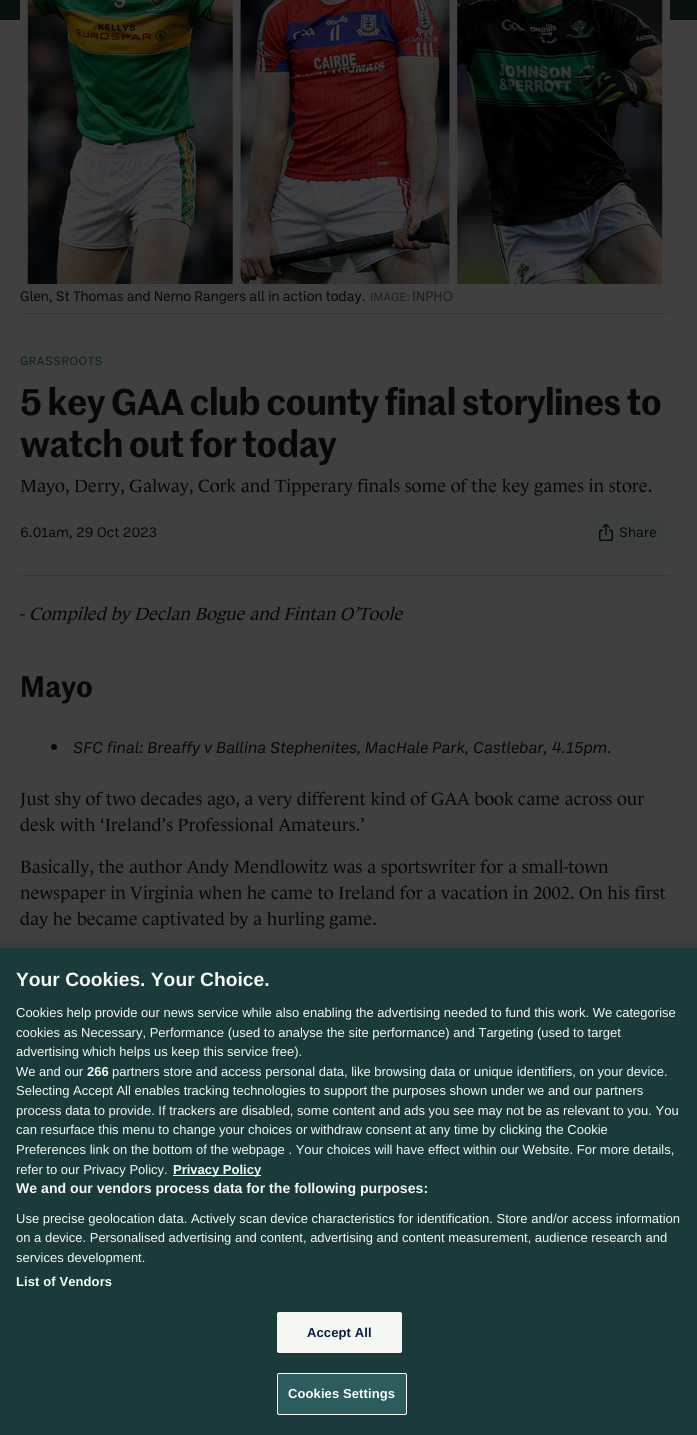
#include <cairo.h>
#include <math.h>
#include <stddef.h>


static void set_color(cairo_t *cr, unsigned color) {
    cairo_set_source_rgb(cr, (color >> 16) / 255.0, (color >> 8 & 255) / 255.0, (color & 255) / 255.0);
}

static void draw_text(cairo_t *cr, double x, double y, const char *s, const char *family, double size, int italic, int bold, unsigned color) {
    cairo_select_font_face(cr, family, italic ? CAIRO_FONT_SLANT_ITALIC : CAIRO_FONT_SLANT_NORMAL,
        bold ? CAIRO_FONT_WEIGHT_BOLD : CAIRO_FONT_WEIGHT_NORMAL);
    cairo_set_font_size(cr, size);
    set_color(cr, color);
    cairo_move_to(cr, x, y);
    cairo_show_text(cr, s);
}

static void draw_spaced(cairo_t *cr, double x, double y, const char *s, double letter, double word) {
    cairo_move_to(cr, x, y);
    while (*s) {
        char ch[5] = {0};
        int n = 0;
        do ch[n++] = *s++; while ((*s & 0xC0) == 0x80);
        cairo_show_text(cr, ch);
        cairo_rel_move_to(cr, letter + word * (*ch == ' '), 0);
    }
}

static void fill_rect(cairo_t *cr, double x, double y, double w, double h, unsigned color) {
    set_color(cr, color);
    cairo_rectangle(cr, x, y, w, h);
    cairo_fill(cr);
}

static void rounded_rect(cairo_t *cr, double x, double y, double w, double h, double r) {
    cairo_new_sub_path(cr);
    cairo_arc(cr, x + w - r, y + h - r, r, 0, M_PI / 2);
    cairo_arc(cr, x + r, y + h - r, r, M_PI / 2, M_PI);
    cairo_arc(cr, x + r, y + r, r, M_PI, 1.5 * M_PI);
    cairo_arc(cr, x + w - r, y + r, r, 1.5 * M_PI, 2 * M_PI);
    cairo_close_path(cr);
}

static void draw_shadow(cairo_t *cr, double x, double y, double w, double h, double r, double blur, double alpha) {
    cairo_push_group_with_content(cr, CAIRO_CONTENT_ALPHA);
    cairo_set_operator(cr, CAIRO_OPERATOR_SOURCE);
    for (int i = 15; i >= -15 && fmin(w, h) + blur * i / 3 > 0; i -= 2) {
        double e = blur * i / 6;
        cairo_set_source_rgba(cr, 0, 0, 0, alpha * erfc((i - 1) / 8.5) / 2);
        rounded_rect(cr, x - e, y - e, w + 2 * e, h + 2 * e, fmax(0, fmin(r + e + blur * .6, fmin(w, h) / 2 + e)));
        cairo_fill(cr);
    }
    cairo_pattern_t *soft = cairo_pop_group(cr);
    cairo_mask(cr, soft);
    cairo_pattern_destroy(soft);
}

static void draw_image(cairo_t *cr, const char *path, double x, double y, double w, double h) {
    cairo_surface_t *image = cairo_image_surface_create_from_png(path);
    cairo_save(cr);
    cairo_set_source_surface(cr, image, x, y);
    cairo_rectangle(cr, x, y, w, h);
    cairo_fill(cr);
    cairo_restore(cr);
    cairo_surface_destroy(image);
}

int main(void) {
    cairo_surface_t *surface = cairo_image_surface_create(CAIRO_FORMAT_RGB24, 697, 1435);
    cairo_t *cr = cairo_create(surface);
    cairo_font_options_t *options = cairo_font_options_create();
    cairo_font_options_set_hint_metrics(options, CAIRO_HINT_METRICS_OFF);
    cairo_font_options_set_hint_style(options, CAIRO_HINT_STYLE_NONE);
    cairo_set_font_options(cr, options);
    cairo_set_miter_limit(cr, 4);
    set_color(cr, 0x404040);
    cairo_paint(cr);
    fill_rect(cr, 0, 0, 697, 20, 0x080F0F);
    draw_image(cr, "assets/img1.png", 20, 0, 650, 284);
    cairo_select_font_face(cr, "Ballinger", CAIRO_FONT_SLANT_NORMAL, CAIRO_FONT_WEIGHT_NORMAL);
    cairo_set_font_size(cr, 14);
    set_color(cr, 0x070707);
    draw_spaced(cr, 20, 301, "Glen, St Thomas and Nemo Rangers all in action today.", -0.05, 0);
    draw_text(cr, 370, 301, "IMAGE:", "Ballinger", 12, 0, 0, 0x1C1C1C);
    cairo_set_font_size(cr, 14);
    draw_spaced(cr, 412, 301, "INPHO", -0.05, 0);
    fill_rect(cr, 20, 313, 650, 1, 0x373737);
    fill_rect(cr, 20, 575, 650, 1, 0x373737);
    cairo_set_font_size(cr, 12);
    set_color(cr, 0x032212);
    draw_spaced(cr, 20, 365, "GRASSROOTS", 0.5, 0);
    cairo_select_font_face(cr, "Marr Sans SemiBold", CAIRO_FONT_SLANT_NORMAL, CAIRO_FONT_WEIGHT_NORMAL);
    cairo_set_font_size(cr, 36);
    set_color(cr, 0x070707);
    draw_spaced(cr, 20, 415, "5 key GAA club county final storylines to", -0.55, 0);
    draw_spaced(cr, 20, 457, "watch out for today", -0.55, 0);
    draw_text(cr, 20, 492, "Mayo, Derry, Galway, Cork and Tipperary finals some of the key games in store.", "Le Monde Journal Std", 18, 0, 0, 0x070707);
    draw_text(cr, 20, 537, "6.01am, 29 Oct 2023", "Ballinger", 14, 0, 0, 0x070707);
    set_color(cr, 0x3C403E);
    rounded_rect(cr, 586, 514, 84, 37, 18.5);
    cairo_fill(cr);
    draw_image(cr, "assets/img2.png", 599, 524, 14, 17);
    draw_text(cr, 619, 537, "Share", "Ballinger", 14, 0, 0, 0x070707);
    draw_text(cr, 20, 620, "-", "Le Monde Journal Std", 18, 0, 0, 0x070707);
    draw_text(cr, 29, 620, "Compiled by Declan Bogue and Fintan O’Toole", "Le Monde Journal Std", 18, 1, 0, 0x070707);
    draw_text(cr, 20, 697, "Mayo", "Marr Sans SemiBold", 29, 0, 0, 0x070707);
    cairo_new_path(cr);
    cairo_arc(cr, 54, 747, 3, 0, 2 * M_PI);
    cairo_fill(cr);
    draw_text(cr, 73, 753, "SFC final: Breaffy v Ballina Stephenites, MacHale Park, Castlebar, 4.15pm.", "Ballinger", 16, 1, 0, 0x070707);
    draw_text(cr, 20, 805, "Just shy of two decades ago, a very different kind of GAA book came across our", "Le Monde Journal Std", 18, 0, 0, 0x070707);
    draw_text(cr, 20, 831, "desk with ‘Ireland’s Professional Amateurs.’", "Le Monde Journal Std", 18, 0, 0, 0x070707);
    draw_text(cr, 20, 873, "Basically, the author Andy Mendlowitz was a sportswriter for a small-town", "Le Monde Journal Std", 18, 0, 0, 0x070707);
    draw_text(cr, 20, 899, "newspaper in Virginia when he came to Ireland for a vacation in 2002. On his first", "Le Monde Journal Std", 18, 0, 0, 0x070707);
    draw_text(cr, 20, 925, "day he became captivated by a hurling game.", "Le Monde Journal Std", 18, 0, 0, 0x070707);
    set_color(cr, 0x000000);
    draw_shadow(cr, 0, 948, 697, 487, 0, 9, 0.2);
    fill_rect(cr, 0, 948, 697, 487, 0x1B3A3B);
    draw_text(cr, 16, 986, "Your Cookies. Your Choice.", "Liberation Sans", 19.25, 0, 1, 0xF4F7F2);
    draw_text(cr, 16, 1017, "Cookies help provide our news service while also enabling the advertising needed to fund this work. We categorise", "Liberation Sans", 13, 0, 0, 0xF4F7F2);
    draw_text(cr, 16, 1037, "cookies as Necessary, Performance (used to analyse the site performance) and Targeting (used to target", "Liberation Sans", 13, 0, 0, 0xF4F7F2);
    draw_text(cr, 16, 1056, "advertising which helps us keep this service free).", "Liberation Sans", 13, 0, 0, 0xF4F7F2);
    draw_text(cr, 16, 1076, "We and our", "Liberation Sans", 13, 0, 0, 0xF4F7F2);
    draw_text(cr, 87, 1076, "266", "Liberation Sans", 13, 0, 1, 0xF4F7F2);
    draw_text(cr, 112, 1076, "partners store and access personal data, like browsing data or unique identifiers, on your device.", "Liberation Sans", 13, 0, 0, 0xF4F7F2);
    draw_text(cr, 16, 1095, "Selecting Accept All enables tracking technologies to support the purposes shown under we and our partners", "Liberation Sans", 13, 0, 0, 0xF4F7F2);
    draw_text(cr, 16, 1115, "process data to provide. If trackers are disabled, some content and ads you see may not be as relevant to you. You", "Liberation Sans", 13, 0, 0, 0xF4F7F2);
    draw_text(cr, 16, 1134, "can resurface this menu to change your choices or withdraw consent at any time by clicking the Cookie", "Liberation Sans", 13, 0, 0, 0xF4F7F2);
    draw_text(cr, 16, 1154, "Preferences link on the bottom of the webpage . Your choices will have effect within our Website. For more details,", "Liberation Sans", 13, 0, 0, 0xF4F7F2);
    draw_text(cr, 16, 1174, "refer to our Privacy Policy.", "Liberation Sans", 13, 0, 0, 0xF4F7F2);
    fill_rect(cr, 173, 1175, 88, 1, 0xF5FFF7);
    draw_text(cr, 173, 1174, "Privacy Policy", "Liberation Sans", 13, 0, 1, 0xF5FFF7);
    draw_text(cr, 16, 1193, "We and our vendors process data for the following purposes:", "Liberation Sans", 14.1, 0, 1, 0xF4F7F2);
    draw_text(cr, 16, 1223, "Use precise geolocation data. Actively scan device characteristics for identification. Store and/or access information", "Liberation Sans", 13, 0, 0, 0xF4F7F2);
    draw_text(cr, 16, 1242, "on a device. Personalised advertising and content, advertising and content measurement, audience research and", "Liberation Sans", 13, 0, 0, 0xF4F7F2);
    draw_text(cr, 16, 1262, "services development.", "Liberation Sans", 13, 0, 0, 0xF4F7F2);
    cairo_select_font_face(cr, "Liberation Sans", CAIRO_FONT_SLANT_NORMAL, CAIRO_FONT_WEIGHT_BOLD);
    set_color(cr, 0xF5FFF7);
    draw_spaced(cr, 16, 1286, "List of Vendors", 0.1, 0);
    set_color(cr, 0xF4F7F2);
    rounded_rect(cr, 277.5, 1312.5, 124, 40, 1.5);
    cairo_fill_preserve(cr);
    cairo_set_line_width(cr, 1);
    cairo_stroke(cr);
    set_color(cr, 0x081B4F);
    draw_spaced(cr, 307, 1337, "Accept All", 0.1, 0);
    set_color(cr, 0x2B5D5E);
    rounded_rect(cr, 277.5, 1373.5, 129, 41, 1.5);
    cairo_fill_preserve(cr);
    set_color(cr, 0xFFFFFF);
    cairo_stroke(cr);
    draw_spaced(cr, 288, 1398, "Cookies Settings", 0.1, 0);
    cairo_surface_write_to_png(surface, "output.png");
    cairo_font_options_destroy(options);
    cairo_destroy(cr);
    cairo_surface_destroy(surface);
    return 0;
}
